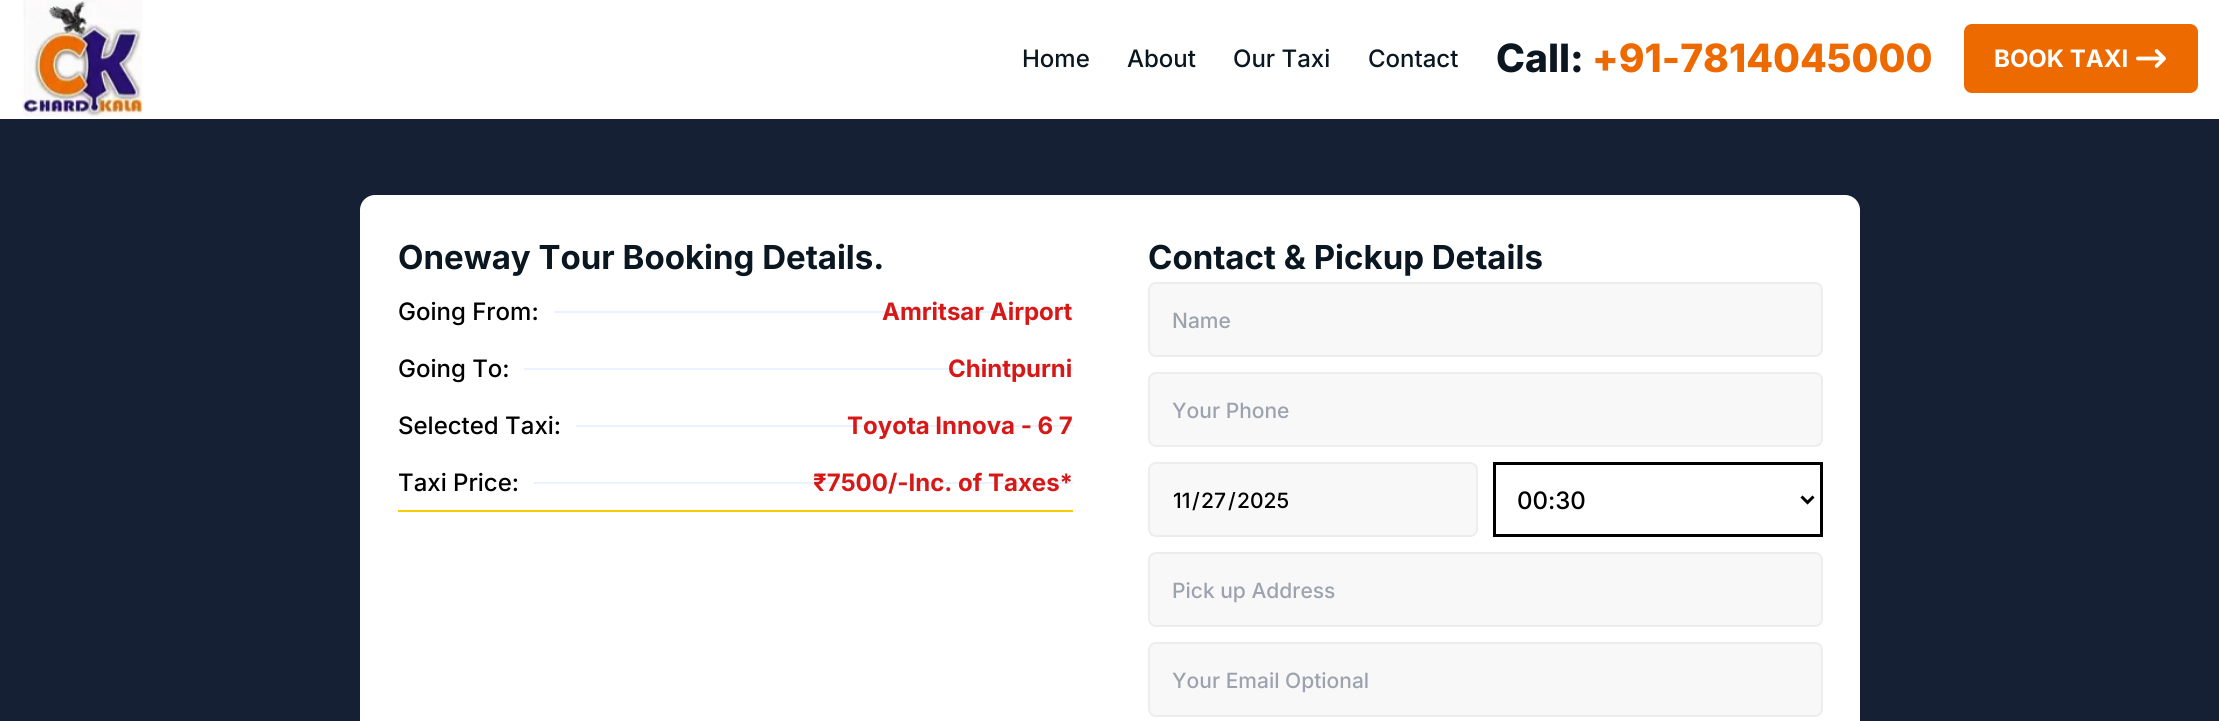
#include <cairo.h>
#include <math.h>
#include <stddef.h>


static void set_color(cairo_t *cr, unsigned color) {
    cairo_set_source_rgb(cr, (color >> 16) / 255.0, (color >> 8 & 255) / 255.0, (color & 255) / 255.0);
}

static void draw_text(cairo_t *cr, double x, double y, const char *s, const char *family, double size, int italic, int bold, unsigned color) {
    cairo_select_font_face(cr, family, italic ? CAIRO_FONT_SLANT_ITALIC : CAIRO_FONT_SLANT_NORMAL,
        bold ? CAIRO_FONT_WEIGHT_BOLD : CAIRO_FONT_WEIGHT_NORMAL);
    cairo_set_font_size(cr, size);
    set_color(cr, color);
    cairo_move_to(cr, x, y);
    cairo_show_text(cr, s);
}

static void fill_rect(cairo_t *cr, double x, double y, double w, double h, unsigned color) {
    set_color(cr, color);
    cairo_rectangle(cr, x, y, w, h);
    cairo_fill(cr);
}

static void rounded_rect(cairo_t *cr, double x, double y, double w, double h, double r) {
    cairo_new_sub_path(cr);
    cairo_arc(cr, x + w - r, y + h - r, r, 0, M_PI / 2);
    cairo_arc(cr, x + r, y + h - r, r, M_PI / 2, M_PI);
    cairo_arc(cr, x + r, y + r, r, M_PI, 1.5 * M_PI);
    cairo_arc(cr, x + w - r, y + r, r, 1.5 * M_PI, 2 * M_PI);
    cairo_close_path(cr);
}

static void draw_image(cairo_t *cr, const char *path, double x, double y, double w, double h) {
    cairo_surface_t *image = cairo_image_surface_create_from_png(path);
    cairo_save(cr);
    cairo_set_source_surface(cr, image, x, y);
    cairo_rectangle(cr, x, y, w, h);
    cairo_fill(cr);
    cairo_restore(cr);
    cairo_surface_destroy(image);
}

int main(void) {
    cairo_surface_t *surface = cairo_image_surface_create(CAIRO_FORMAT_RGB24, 2219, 721);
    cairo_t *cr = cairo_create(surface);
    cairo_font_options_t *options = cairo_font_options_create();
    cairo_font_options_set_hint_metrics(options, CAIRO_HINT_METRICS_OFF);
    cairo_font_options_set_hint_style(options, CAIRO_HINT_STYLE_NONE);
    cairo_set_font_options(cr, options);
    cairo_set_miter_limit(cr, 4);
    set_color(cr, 0x152035);
    cairo_paint(cr);
    fill_rect(cr, 0, 0, 2219, 119, 0xFFFFFF);
    draw_image(cr, "assets/img1.png", 22, 0, 121, 117);
    draw_text(cr, 1022, 67, "Home", "Inter Medium", 24, 0, 0, 0x0B1720);
    draw_text(cr, 1127, 67, "About", "Inter Medium", 24, 0, 0, 0x0B1720);
    draw_text(cr, 1233, 67, "Our Taxi", "Inter Medium", 24, 0, 0, 0x0B1720);
    draw_text(cr, 1368, 67, "Contact", "Inter Medium", 24, 0, 0, 0x0B1720);
    draw_text(cr, 1496, 72, "Call:", "Inter ExtraBold", 39, 0, 0, 0x0B1720);
    draw_text(cr, 1592, 72, "+91-7814045000", "Inter ExtraBold", 39, 0, 0, 0xED6A01);
    rounded_rect(cr, 1965, 25, 232, 67, 7);
    cairo_fill_preserve(cr);
    cairo_stroke(cr);
    draw_text(cr, 1994, 67, "BOOK TAXI", "Inter", 24, 0, 1, 0xFFFFFF);
    draw_image(cr, "assets/img2.png", 2136, 49, 30, 19);
    rounded_rect(cr, 360, 195, 1500, 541, 15);
    cairo_fill(cr);
    draw_text(cr, 398, 269, "Oneway Tour Booking Details.", "Inter", 33, 0, 1, 0x0B1720);
    fill_rect(cr, 398, 510, 675, 2, 0xFACC02);
    draw_text(cr, 398, 320, "Going From:", "Inter Medium", 24, 0, 0, 0x000000);
    fill_rect(cr, 554, 311, 519, 2, 0xEAF2FF);
    draw_text(cr, 882, 320, "Amritsar Airport", "Inter", 24, 0, 1, 0xD61917);
    draw_text(cr, 398, 377, "Going To:", "Inter Medium", 24, 0, 0, 0x000000);
    fill_rect(cr, 524, 368, 549, 2, 0xEAF2FF);
    draw_text(cr, 948, 377, "Chintpurni", "Inter", 24, 0, 1, 0xD61917);
    draw_text(cr, 398, 434, "Selected Taxi:", "Inter Medium", 24, 0, 0, 0x000000);
    fill_rect(cr, 576, 425, 497, 2, 0xEAF2FF);
    draw_text(cr, 847, 434, "Toyota Innova - 6 7", "Inter", 24, 0, 1, 0xD61917);
    draw_text(cr, 398, 491, "Taxi Price:", "Inter Medium", 24, 0, 0, 0x000000);
    fill_rect(cr, 534, 482, 539, 2, 0xEAF2FF);
    draw_text(cr, 813, 491, "₹7500/-Inc. of Taxes*", "Inter", 24, 0, 1, 0xD61917);
    draw_text(cr, 1148, 269, "Contact & Pickup Details", "Inter", 33, 0, 1, 0x0B1720);
    set_color(cr, 0xF8F8F8);
    rounded_rect(cr, 1149, 283, 673, 73, 7);
    cairo_fill_preserve(cr);
    set_color(cr, 0xEDEDED);
    cairo_stroke(cr);
    draw_text(cr, 1172, 328, "Name", "Inter Medium", 21, 0, 0, 0x9CA3AF);
    set_color(cr, 0xF8F8F8);
    rounded_rect(cr, 1149, 373, 673, 73, 7);
    cairo_fill_preserve(cr);
    set_color(cr, 0xEDEDED);
    cairo_stroke(cr);
    draw_text(cr, 1172, 418, "Your Phone", "Inter Medium", 21, 0, 0, 0x9CA3AF);
    set_color(cr, 0xF8F8F8);
    rounded_rect(cr, 1149, 463, 328, 73, 7);
    cairo_fill_preserve(cr);
    set_color(cr, 0xEDEDED);
    cairo_stroke(cr);
    draw_text(cr, 1173, 508, "11", "Inter Medium", 21, 0, 0, 0x000000);
    draw_text(cr, 1192, 508, "/", "Inter Medium", 21, 0, 0, 0x000000);
    draw_text(cr, 1201, 508, "27", "Inter Medium", 21, 0, 0, 0x000000);
    draw_text(cr, 1228, 508, "/", "Inter Medium", 21, 0, 0, 0x000000);
    draw_text(cr, 1237, 508, "2025", "Inter Medium", 21, 0, 0, 0x000000);
    cairo_rectangle(cr, 1494.5, 463.5, 327, 72);
    cairo_set_line_width(cr, 3);
    cairo_stroke(cr);
    cairo_new_path(cr);
    cairo_move_to(cr, 1801.5, 496.5);
    cairo_line_to(cr, 1807.5, 502.5);
    cairo_line_to(cr, 1813.5, 496.5);
    cairo_stroke(cr);
    draw_text(cr, 1517, 509, "00:30", "Inter Medium", 24, 0, 0, 0x000000);
    set_color(cr, 0xF8F8F8);
    rounded_rect(cr, 1149, 553, 673, 73, 7);
    cairo_fill_preserve(cr);
    set_color(cr, 0xEDEDED);
    cairo_set_line_width(cr, 2);
    cairo_stroke(cr);
    draw_text(cr, 1172, 598, "Pick up Address", "Inter Medium", 21, 0, 0, 0x9CA3AF);
    set_color(cr, 0xF8F8F8);
    rounded_rect(cr, 1149, 643, 673, 73, 7);
    cairo_fill_preserve(cr);
    set_color(cr, 0xEDEDED);
    cairo_stroke(cr);
    draw_text(cr, 1172, 688, "Your Email Optional", "Inter Medium", 21, 0, 0, 0x9CA3AF);
    cairo_surface_write_to_png(surface, "output.png");
    cairo_font_options_destroy(options);
    cairo_destroy(cr);
    cairo_surface_destroy(surface);
    return 0;
}
